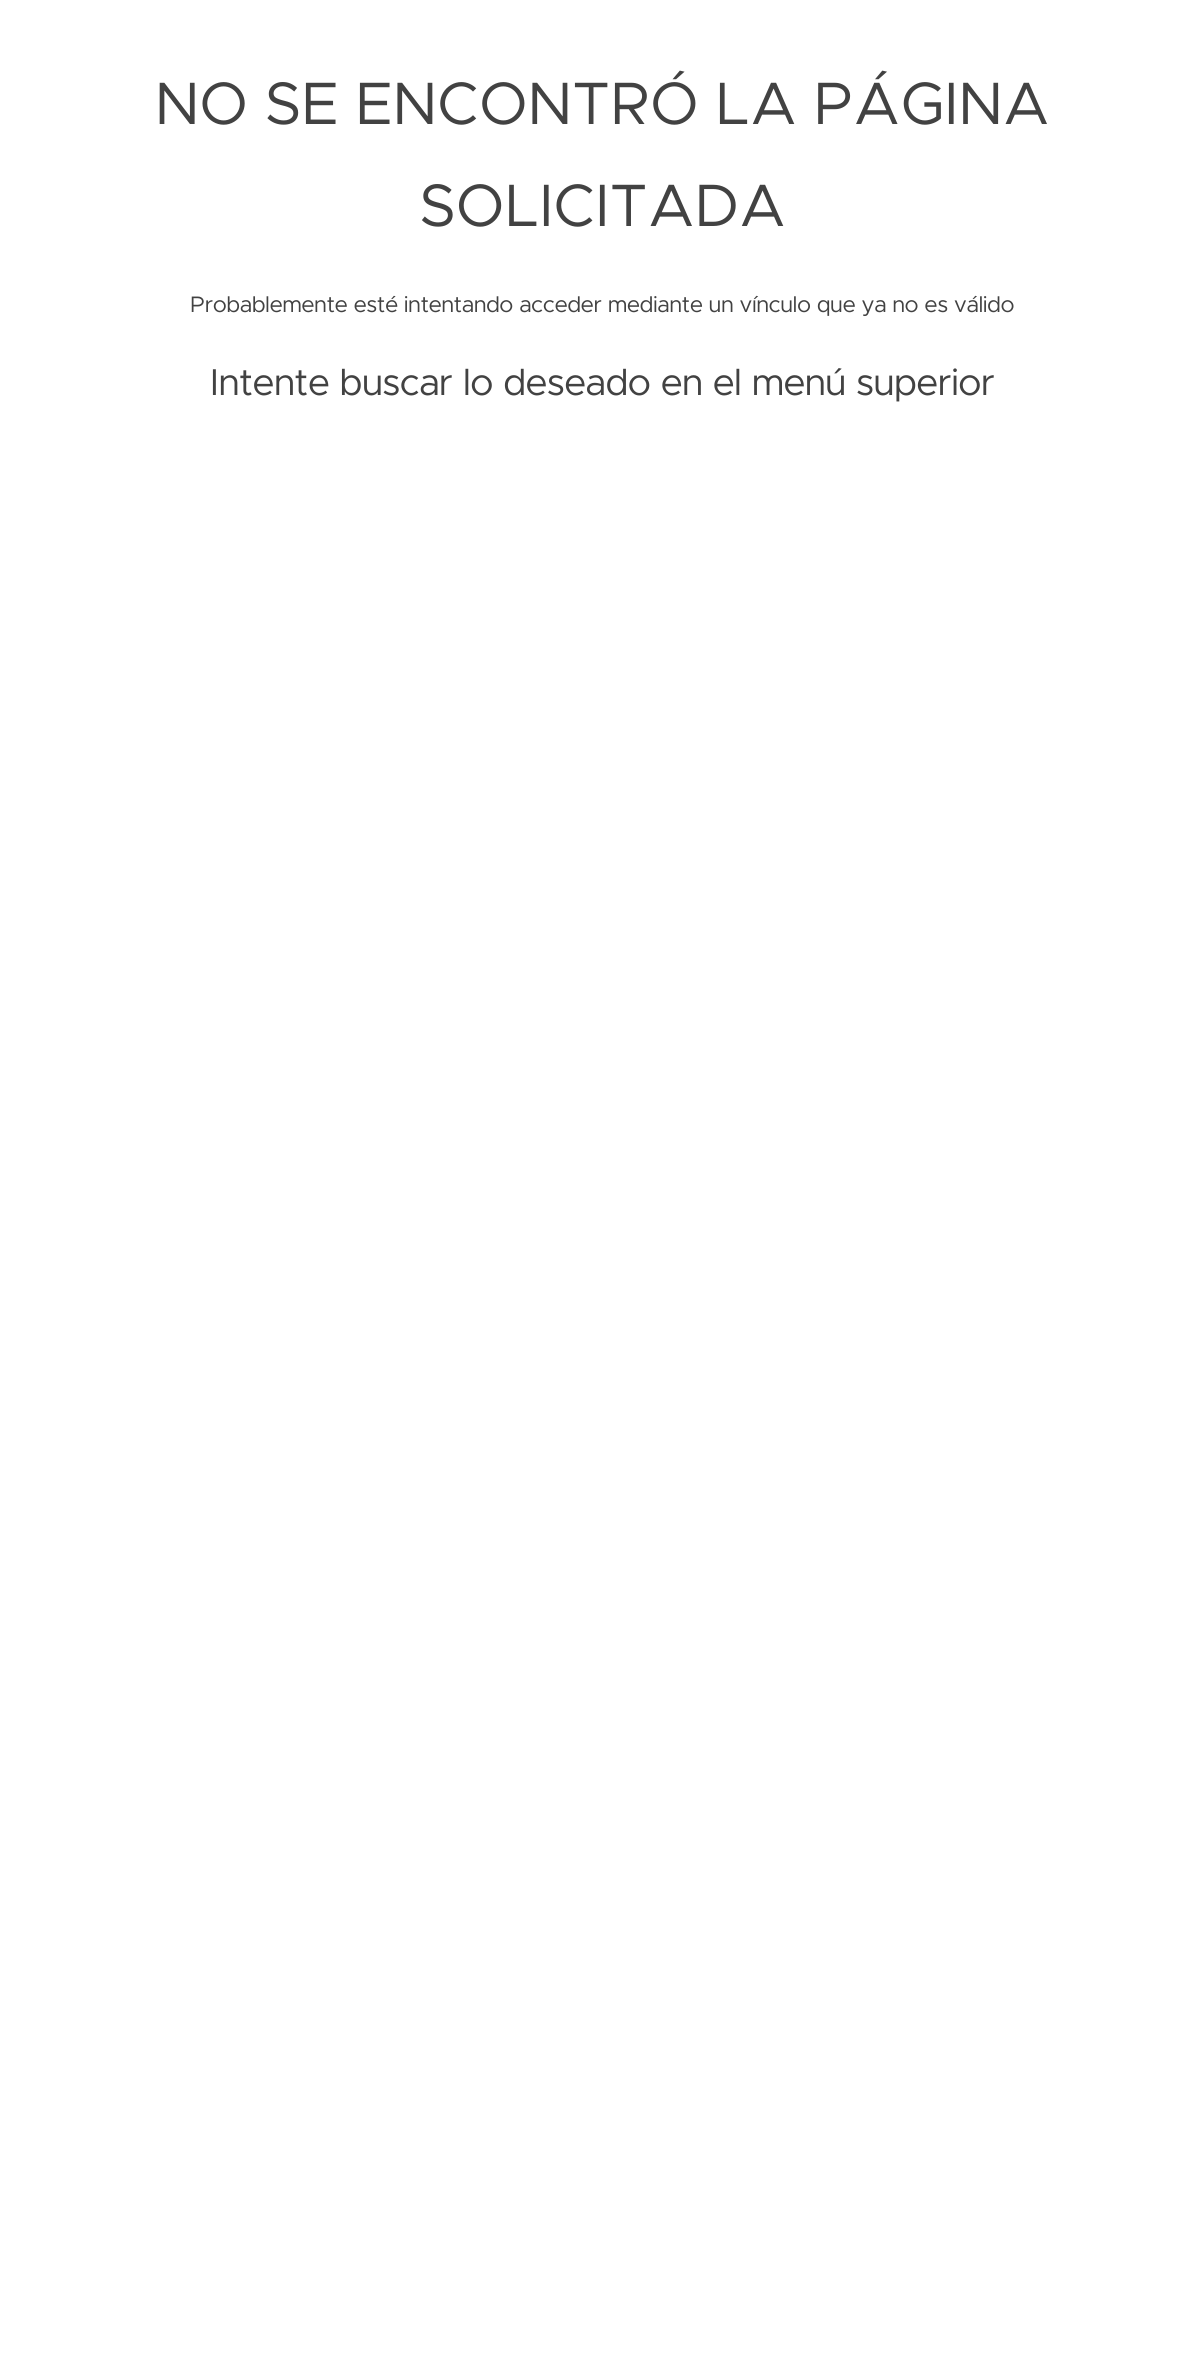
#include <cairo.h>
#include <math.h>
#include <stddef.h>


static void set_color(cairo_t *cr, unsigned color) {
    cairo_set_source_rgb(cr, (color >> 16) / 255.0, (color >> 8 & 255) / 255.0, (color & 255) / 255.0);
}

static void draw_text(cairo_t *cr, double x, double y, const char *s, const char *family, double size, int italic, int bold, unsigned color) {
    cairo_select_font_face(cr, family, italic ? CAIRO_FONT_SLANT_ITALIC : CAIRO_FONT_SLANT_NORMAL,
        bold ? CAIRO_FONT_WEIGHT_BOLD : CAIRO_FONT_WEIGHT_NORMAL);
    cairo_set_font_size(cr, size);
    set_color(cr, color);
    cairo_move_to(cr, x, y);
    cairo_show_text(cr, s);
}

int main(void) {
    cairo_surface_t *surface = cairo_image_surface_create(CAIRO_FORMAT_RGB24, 1204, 2366);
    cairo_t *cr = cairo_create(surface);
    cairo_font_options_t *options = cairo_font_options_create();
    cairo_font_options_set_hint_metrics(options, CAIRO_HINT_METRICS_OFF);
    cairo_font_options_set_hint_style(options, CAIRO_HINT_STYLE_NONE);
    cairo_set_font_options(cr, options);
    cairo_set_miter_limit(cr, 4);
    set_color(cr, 0xFFFFFF);
    cairo_paint(cr);
    draw_text(cr, 155, 124, "NO SE ENCONTRÓ LA PÁGINA", "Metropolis", 60, 0, 0, 0x424242);
    draw_text(cr, 419, 226, "SOLICITADA", "Metropolis", 60, 0, 0, 0x424242);
    draw_text(cr, 190, 312, "Probablemente esté intentando acceder mediante un vínculo que ya no es válido", "Metropolis", 22.5, 0, 0, 0x424242);
    draw_text(cr, 210, 395, "Intente buscar lo deseado en el menú superior", "Metropolis", 37.5, 0, 0, 0x424242);
    cairo_surface_write_to_png(surface, "output.png");
    cairo_font_options_destroy(options);
    cairo_destroy(cr);
    cairo_surface_destroy(surface);
    return 0;
}
